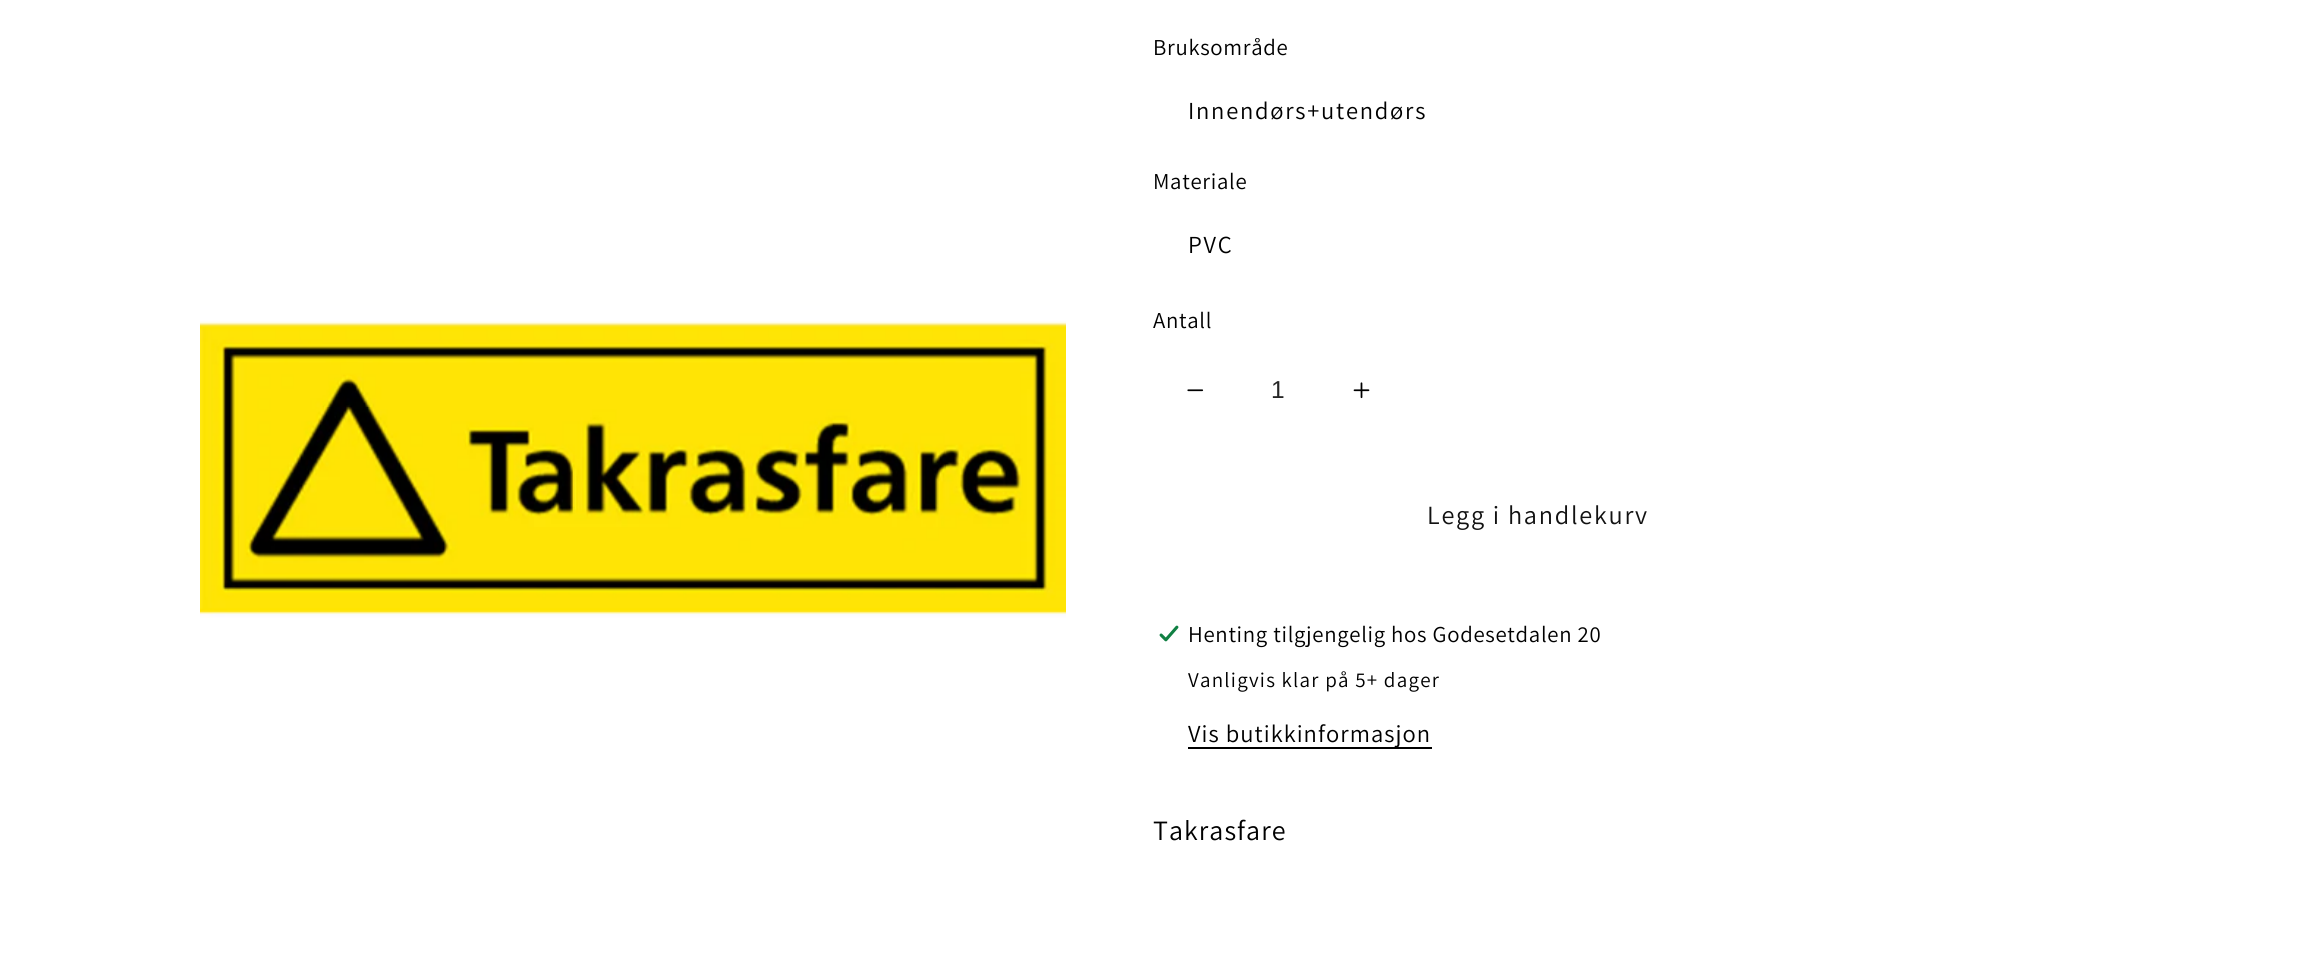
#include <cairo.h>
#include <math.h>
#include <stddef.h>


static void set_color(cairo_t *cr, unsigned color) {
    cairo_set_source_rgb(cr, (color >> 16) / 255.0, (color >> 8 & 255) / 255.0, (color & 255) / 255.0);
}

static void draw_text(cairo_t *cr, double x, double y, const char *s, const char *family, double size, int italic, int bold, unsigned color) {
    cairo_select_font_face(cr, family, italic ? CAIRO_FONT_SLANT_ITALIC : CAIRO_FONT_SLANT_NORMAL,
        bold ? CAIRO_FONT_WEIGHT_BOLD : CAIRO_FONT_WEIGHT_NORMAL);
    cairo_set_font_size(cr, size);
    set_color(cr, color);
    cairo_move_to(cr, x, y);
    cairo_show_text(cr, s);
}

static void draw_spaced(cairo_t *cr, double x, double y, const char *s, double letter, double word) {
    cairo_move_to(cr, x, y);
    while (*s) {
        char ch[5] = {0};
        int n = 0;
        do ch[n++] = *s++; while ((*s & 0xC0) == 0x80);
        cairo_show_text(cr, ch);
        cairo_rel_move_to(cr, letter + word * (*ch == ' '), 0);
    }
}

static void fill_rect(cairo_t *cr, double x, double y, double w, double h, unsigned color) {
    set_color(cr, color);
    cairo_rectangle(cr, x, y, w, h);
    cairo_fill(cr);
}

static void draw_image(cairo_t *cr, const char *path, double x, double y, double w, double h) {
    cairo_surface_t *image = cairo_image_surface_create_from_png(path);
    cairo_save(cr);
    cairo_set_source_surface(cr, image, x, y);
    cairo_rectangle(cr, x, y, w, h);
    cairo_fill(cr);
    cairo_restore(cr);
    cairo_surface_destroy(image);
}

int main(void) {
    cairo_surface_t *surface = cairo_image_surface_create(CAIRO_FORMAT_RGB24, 2324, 973);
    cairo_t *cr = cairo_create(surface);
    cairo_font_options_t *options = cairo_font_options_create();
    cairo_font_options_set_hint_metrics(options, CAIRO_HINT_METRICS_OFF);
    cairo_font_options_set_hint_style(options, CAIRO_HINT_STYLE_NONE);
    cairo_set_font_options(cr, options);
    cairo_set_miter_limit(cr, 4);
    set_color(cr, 0xFFFFFF);
    cairo_paint(cr);
    draw_image(cr, "assets/img1.png", 200, 321, 866, 297);
    cairo_select_font_face(cr, "Assistant", CAIRO_FONT_SLANT_NORMAL, CAIRO_FONT_WEIGHT_NORMAL);
    cairo_set_font_size(cr, 22.75);
    set_color(cr, 0x000000);
    draw_spaced(cr, 1153, 55, "Bruksområde", 0.7, 0);
    cairo_set_font_size(cr, 24.5);
    draw_spaced(cr, 1188, 119, "Innendørs+utendørs", 1.75, 0);
    cairo_set_font_size(cr, 22.75);
    draw_spaced(cr, 1153, 189, "Materiale", 0.7, 0);
    cairo_set_font_size(cr, 24.5);
    draw_spaced(cr, 1188, 253, "PVC", 1.75, 0);
    cairo_set_font_size(cr, 22.75);
    draw_spaced(cr, 1153, 328, "Antall", 0.7, 0);
    draw_image(cr, "assets/img2.png", 1187, 389, 17, 3);
    draw_text(cr, 1271, 398, "1", "Liberation Sans", 24.5, 0, 0, 0x262626);
    draw_image(cr, "assets/img3.png", 1353, 382, 17, 17);
    cairo_select_font_face(cr, "Assistant", CAIRO_FONT_SLANT_NORMAL, CAIRO_FONT_WEIGHT_NORMAL);
    cairo_set_font_size(cr, 26.25);
    set_color(cr, 0x121212);
    draw_spaced(cr, 1427, 524, "Legg i handlekurv", 1.75, 0);
    draw_image(cr, "assets/img4.png", 1159, 625, 20, 17);
    cairo_set_font_size(cr, 22.75);
    set_color(cr, 0x000000);
    draw_spaced(cr, 1188, 642, "Henting tilgjengelig hos Godesetdalen 20", 0.7, 0);
    cairo_set_font_size(cr, 21);
    draw_spaced(cr, 1188, 687, "Vanligvis klar på 5+ dager", 1.25, 0);
    fill_rect(cr, 1188, 747, 244, 2, 0x000000);
    cairo_set_font_size(cr, 24.5);
    draw_spaced(cr, 1188, 742, "Vis butikkinformasjon", 1.05, 0);
    cairo_set_font_size(cr, 28);
    draw_spaced(cr, 1153, 840, "Takrasfare", 1.05, 0);
    cairo_surface_write_to_png(surface, "output.png");
    cairo_font_options_destroy(options);
    cairo_destroy(cr);
    cairo_surface_destroy(surface);
    return 0;
}
